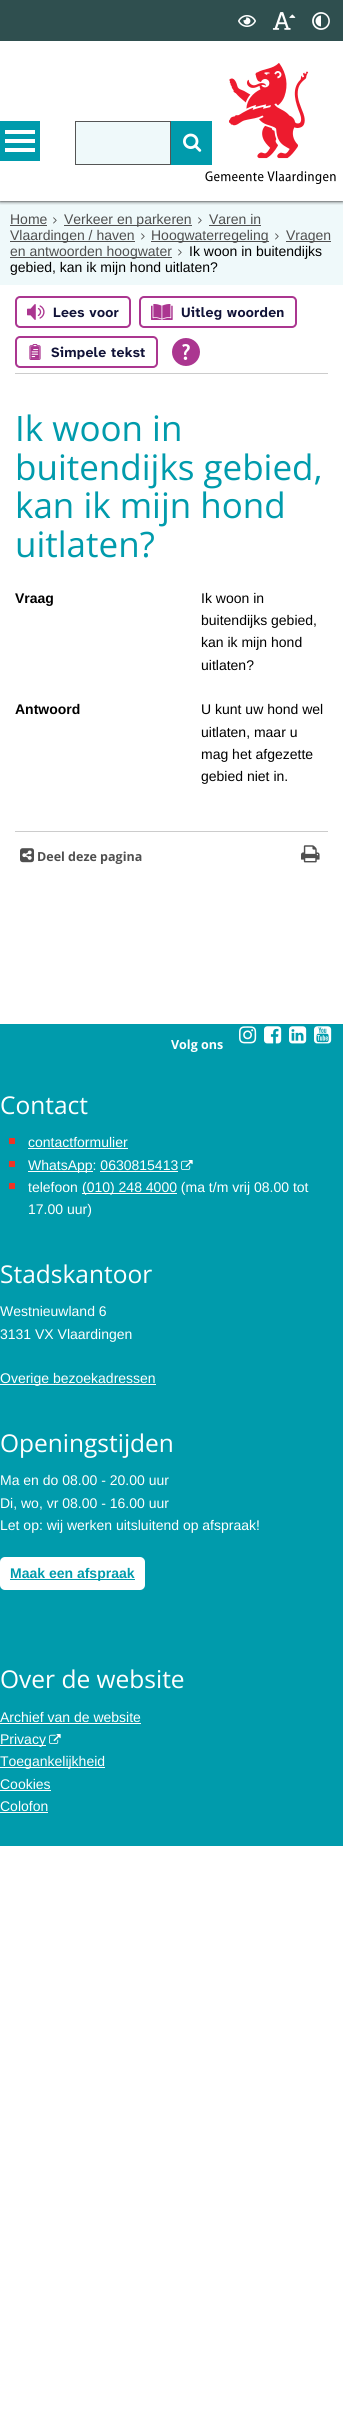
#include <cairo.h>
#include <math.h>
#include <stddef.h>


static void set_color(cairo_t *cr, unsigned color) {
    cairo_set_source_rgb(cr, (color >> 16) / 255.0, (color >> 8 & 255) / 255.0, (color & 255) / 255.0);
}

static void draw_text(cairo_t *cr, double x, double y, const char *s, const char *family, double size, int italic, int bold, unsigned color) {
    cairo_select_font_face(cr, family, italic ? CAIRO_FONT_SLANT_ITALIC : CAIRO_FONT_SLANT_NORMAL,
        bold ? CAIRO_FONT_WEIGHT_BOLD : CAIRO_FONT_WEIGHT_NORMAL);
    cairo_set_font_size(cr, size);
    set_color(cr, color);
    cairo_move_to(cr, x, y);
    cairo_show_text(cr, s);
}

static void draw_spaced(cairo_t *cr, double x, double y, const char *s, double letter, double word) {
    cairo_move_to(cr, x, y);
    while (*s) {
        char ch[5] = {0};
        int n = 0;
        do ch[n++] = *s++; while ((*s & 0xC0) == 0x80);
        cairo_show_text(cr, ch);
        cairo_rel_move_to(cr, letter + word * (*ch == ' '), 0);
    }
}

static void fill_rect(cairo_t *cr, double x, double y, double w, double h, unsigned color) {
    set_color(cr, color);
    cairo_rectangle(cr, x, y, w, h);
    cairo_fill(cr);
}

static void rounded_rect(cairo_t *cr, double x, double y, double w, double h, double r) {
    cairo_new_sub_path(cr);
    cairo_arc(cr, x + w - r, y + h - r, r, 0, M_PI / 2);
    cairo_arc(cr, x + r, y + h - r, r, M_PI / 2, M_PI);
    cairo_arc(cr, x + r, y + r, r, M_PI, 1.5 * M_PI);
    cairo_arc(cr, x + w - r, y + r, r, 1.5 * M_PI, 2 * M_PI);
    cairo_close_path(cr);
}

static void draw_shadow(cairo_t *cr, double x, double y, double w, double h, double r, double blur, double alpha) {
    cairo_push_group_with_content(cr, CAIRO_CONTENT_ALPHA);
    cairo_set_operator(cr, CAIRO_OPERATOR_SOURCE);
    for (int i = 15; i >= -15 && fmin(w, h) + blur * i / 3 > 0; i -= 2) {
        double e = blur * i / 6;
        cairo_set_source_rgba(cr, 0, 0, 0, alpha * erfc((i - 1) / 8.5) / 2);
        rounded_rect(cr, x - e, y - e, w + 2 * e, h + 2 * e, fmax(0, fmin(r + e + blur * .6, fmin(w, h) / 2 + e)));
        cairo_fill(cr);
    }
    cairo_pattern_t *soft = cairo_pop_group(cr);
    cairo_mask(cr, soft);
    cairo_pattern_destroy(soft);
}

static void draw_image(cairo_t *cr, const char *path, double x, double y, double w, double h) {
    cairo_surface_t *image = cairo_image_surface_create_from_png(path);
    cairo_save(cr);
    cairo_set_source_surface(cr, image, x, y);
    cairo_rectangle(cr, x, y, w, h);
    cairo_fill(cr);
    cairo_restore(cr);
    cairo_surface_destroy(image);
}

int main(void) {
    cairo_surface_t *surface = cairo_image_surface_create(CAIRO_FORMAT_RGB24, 343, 2416);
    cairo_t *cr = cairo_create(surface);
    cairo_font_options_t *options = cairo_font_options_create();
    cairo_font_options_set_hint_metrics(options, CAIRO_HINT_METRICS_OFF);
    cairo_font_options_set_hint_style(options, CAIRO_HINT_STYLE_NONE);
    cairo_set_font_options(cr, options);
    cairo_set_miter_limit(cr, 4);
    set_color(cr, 0xFFFFFF);
    cairo_paint(cr);
    fill_rect(cr, 0, 201, 343, 84, 0xEFF9FA);
    cairo_save(cr);
    cairo_rectangle(cr, 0, 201, 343, 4);
    cairo_clip(cr);
    set_color(cr, 0x000000);
    draw_shadow(cr, 0, 0, 343, 201, 0, 2, 1);
    cairo_restore(cr);
    fill_rect(cr, 0, 0, 343, 41, 0x2F4F4F);
    draw_image(cr, "assets/img1.png", 238, 15, 18, 12);
    draw_image(cr, "assets/img2.png", 272, 12, 24, 18);
    draw_image(cr, "assets/img3.png", 312, 12, 18, 18);
    set_color(cr, 0xEFF9FA);
    cairo_rectangle(cr, 75.5, 121.5, 95, 43);
    cairo_fill_preserve(cr);
    set_color(cr, 0x555555);
    cairo_set_line_width(cr, 1);
    cairo_stroke(cr);
    draw_image(cr, "assets/img5.png", 205, 63, 131, 121);
    fill_rect(cr, 171, 121, 41, 44, 0x009BAC);
    draw_image(cr, "assets/img4.png", 183, 133, 19, 19);
    fill_rect(cr, 0, 121, 40, 40, 0x009BAC);
    fill_rect(cr, 5, 148, 30, 4, 0xFFFFFF);
    fill_rect(cr, 5, 139, 30, 4, 0xFFFFFF);
    fill_rect(cr, 5, 130, 30, 4, 0xFFFFFF);
    draw_text(cr, 209, 224, "Varen in", "Liberation Sans", 14, 0, 0, 0x4F4F4F);
    fill_rect(cr, 209, 225, 52, 1, 0x4F4F4F);
    fill_rect(cr, 10, 241, 125, 1, 0x4F4F4F);
    draw_text(cr, 10, 240, "Vlaardingen / haven", "Liberation Sans", 14, 0, 0, 0x4F4F4F);
    draw_image(cr, "assets/img6.png", 141, 233, 4, 7);
    draw_text(cr, 10, 224, "Home", "Liberation Sans", 14, 0, 0, 0x4F4F4F);
    fill_rect(cr, 10, 225, 37, 1, 0x4F4F4F);
    draw_image(cr, "assets/img6.png", 53, 217, 4, 7);
    fill_rect(cr, 64, 225, 128, 1, 0x4F4F4F);
    draw_text(cr, 64, 224, "Verkeer en parkeren", "Liberation Sans", 14, 0, 0, 0x4F4F4F);
    draw_image(cr, "assets/img6.png", 198, 217, 4, 7);
    fill_rect(cr, 151, 241, 118, 1, 0x4F4F4F);
    draw_text(cr, 151, 240, "Hoogwaterregeling", "Liberation Sans", 14, 0, 0, 0x4F4F4F);
    draw_image(cr, "assets/img6.png", 275, 233, 4, 7);
    fill_rect(cr, 286, 241, 45, 1, 0x4F4F4F);
    draw_text(cr, 286, 240, "Vragen", "Liberation Sans", 14, 0, 0, 0x4F4F4F);
    fill_rect(cr, 10, 257, 162, 1, 0x4F4F4F);
    draw_text(cr, 10, 256, "en antwoorden hoogwater", "Liberation Sans", 14, 0, 0, 0x4F4F4F);
    draw_image(cr, "assets/img6.png", 178, 249, 4, 7);
    draw_text(cr, 189, 256, "Ik woon in buitendijks", "Liberation Sans", 14, 0, 0, 0x000000);
    draw_text(cr, 10, 272, "gebied, kan ik mijn hond uitlaten?", "Liberation Sans", 14, 0, 0, 0x000000);
    fill_rect(cr, 15, 373, 313, 1, 0xCCCCCC);
    rounded_rect(cr, 16, 297, 114, 30, 4);
    set_color(cr, 0xAB3690);
    cairo_set_line_width(cr, 2);
    cairo_stroke(cr);
    draw_image(cr, "assets/img7.png", 27, 304, 18, 16);
    cairo_select_font_face(cr, "Atkinson Hyperlegible Next", CAIRO_FONT_SLANT_NORMAL, CAIRO_FONT_WEIGHT_BOLD);
    set_color(cr, 0x101237);
    draw_spaced(cr, 53, 317, "Lees voor", 0.25, 0);
    rounded_rect(cr, 140, 297, 156, 30, 4);
    set_color(cr, 0xAB3690);
    cairo_stroke(cr);
    draw_image(cr, "assets/img8.png", 151, 304, 22, 16);
    set_color(cr, 0x101237);
    draw_spaced(cr, 181, 317, "Uitleg woorden", 0.25, 0);
    rounded_rect(cr, 16, 337, 141, 30, 4);
    set_color(cr, 0xAB3690);
    cairo_stroke(cr);
    draw_image(cr, "assets/img9.png", 29, 344, 12, 16);
    set_color(cr, 0x101237);
    draw_spaced(cr, 51, 357, "Simpele tekst", 0.25, 0);
    set_color(cr, 0xAB3690);
    cairo_new_path(cr);
    cairo_arc(cr, 186, 352, 14, 0, 2 * M_PI);
    cairo_fill(cr);
    draw_image(cr, "assets/img10.png", 182, 344, 8, 16);
    draw_text(cr, 15, 441, "Ik woon in", "Open Sans", 35, 0, 0, 0x009BAC);
    draw_text(cr, 15, 480, "buitendijks gebied,", "Open Sans", 35, 0, 0, 0x009BAC);
    draw_text(cr, 15, 518, "kan ik mijn hond", "Open Sans", 35, 0, 0, 0x009BAC);
    draw_text(cr, 15, 557, "uitlaten?", "Open Sans", 35, 0, 0, 0x009BAC);
    draw_text(cr, 15, 603, "Vraag", "Liberation Sans", 14, 0, 1, 0x000000);
    draw_text(cr, 201, 603, "Ik woon in", "Liberation Sans", 14, 0, 0, 0x000000);
    draw_text(cr, 201, 625, "buitendijks gebied,", "Liberation Sans", 14, 0, 0, 0x000000);
    draw_text(cr, 201, 647, "kan ik mijn hond", "Liberation Sans", 14, 0, 0, 0x000000);
    draw_text(cr, 201, 670, "uitlaten?", "Liberation Sans", 14, 0, 0, 0x000000);
    draw_text(cr, 15, 714, "Antwoord", "Liberation Sans", 14, 0, 1, 0x000000);
    draw_text(cr, 201, 714, "U kunt uw hond wel", "Liberation Sans", 14, 0, 0, 0x000000);
    draw_text(cr, 201, 737, "uitlaten, maar u", "Liberation Sans", 14, 0, 0, 0x000000);
    draw_text(cr, 201, 759, "mag het afgezette", "Liberation Sans", 14, 0, 0, 0x000000);
    draw_text(cr, 201, 781, "gebied niet in.", "Liberation Sans", 14, 0, 0, 0x000000);
    fill_rect(cr, 15, 831, 313, 1, 0xCCCCCC);
    draw_image(cr, "assets/img11.png", 20, 848, 14, 15);
    draw_text(cr, 37, 861, "Deel deze pagina", "Open Sans", 12.5, 0, 1, 0x4F4F4F);
    draw_image(cr, "assets/img12.png", 301, 845, 19, 18);
    fill_rect(cr, 0, 1024, 343, 822, 0x009BAC);
    draw_image(cr, "assets/img13.png", 239, 1026, 18, 18);
    draw_image(cr, "assets/img14.png", 264, 1026, 18, 18);
    draw_image(cr, "assets/img15.png", 289, 1026, 18, 18);
    draw_image(cr, "assets/img16.png", 314, 1026, 18, 18);
    draw_text(cr, 171, 1049, "Volg ons", "Open Sans", 12.5, 0, 1, 0xFFFFFF);
    draw_text(cr, 0, 1114, "Contact", "Open Sans", 24.5, 0, 0, 0xFFFFFF);
    fill_rect(cr, 9, 1138, 6, 6, 0xEE3426);
    draw_text(cr, 28, 1147, "contactformulier", "Liberation Sans", 14, 0, 0, 0xFFFFFF);
    fill_rect(cr, 28, 1148, 100, 1, 0xFFFFFF);
    fill_rect(cr, 28, 1171, 65, 1, 0xFFFFFF);
    draw_text(cr, 28, 1170, "WhatsApp: 0630815413", "Liberation Sans", 14, 0, 0, 0xFFFFFF);
    fill_rect(cr, 9, 1161, 6, 6, 0xEE3426);
    draw_image(cr, "assets/img17.png", 181, 1160, 12, 10);
    fill_rect(cr, 100, 1171, 78, 1, 0xFFFFFF);
    fill_rect(cr, 9, 1183, 6, 6, 0xEE3426);
    draw_text(cr, 28, 1192, "telefoon", "Liberation Sans", 14, 0, 0, 0xFFFFFF);
    fill_rect(cr, 82, 1193, 95, 1, 0xFFFFFF);
    draw_text(cr, 82, 1192, "(010) 248 4000 (ma t/m vrij 08.00 tot", "Liberation Sans", 14, 0, 0, 0xFFFFFF);
    draw_text(cr, 28, 1214, "17.00 uur)", "Liberation Sans", 14, 0, 0, 0xFFFFFF);
    draw_text(cr, 0, 1283, "Stadskantoor", "Open Sans", 24.5, 0, 0, 0xFFFFFF);
    draw_text(cr, 0, 1316, "Westnieuwland 6", "Liberation Sans", 14, 0, 0, 0xFFFFFF);
    draw_text(cr, 0, 1339, "3131 VX Vlaardingen", "Liberation Sans", 14, 0, 0, 0xFFFFFF);
    fill_rect(cr, 0, 1384, 156, 1, 0xFFFFFF);
    draw_text(cr, 0, 1383, "Overige bezoekadressen", "Liberation Sans", 14, 0, 0, 0xFFFFFF);
    draw_text(cr, 0, 1452, "Openingstijden", "Open Sans", 24.5, 0, 0, 0xFFFFFF);
    draw_text(cr, 0, 1485, "Ma en do 08.00 - 20.00 uur", "Liberation Sans", 14, 0, 0, 0xFFFFFF);
    draw_text(cr, 0, 1508, "Di, wo, vr 08.00 - 16.00 uur", "Liberation Sans", 14, 0, 0, 0xFFFFFF);
    draw_text(cr, 0, 1530, "Let op: wij werken uitsluitend op afspraak!", "Liberation Sans", 14, 0, 0, 0xFFFFFF);
    rounded_rect(cr, 0, 1557, 145, 33, 5);
    cairo_fill(cr);
    fill_rect(cr, 10, 1579, 125, 1, 0x009BAC);
    draw_text(cr, 10, 1578, "Maak een afspraak", "Liberation Sans", 14, 0, 1, 0x009BAC);
    draw_text(cr, 0, 1688, "Over de website", "Open Sans", 24.5, 0, 0, 0xFFFFFF);
    draw_text(cr, 0, 1722, "Archief van de website", "Liberation Sans", 14, 0, 0, 0xFFFFFF);
    fill_rect(cr, 0, 1723, 141, 1, 0xFFFFFF);
    fill_rect(cr, 0, 1745, 46, 1, 0xFFFFFF);
    draw_text(cr, 0, 1744, "Privacy", "Liberation Sans", 14, 0, 0, 0xFFFFFF);
    draw_image(cr, "assets/img17.png", 49, 1734, 12, 10);
    fill_rect(cr, 0, 1767, 105, 1, 0xFFFFFF);
    draw_text(cr, 0, 1766, "Toegankelijkheid", "Liberation Sans", 14, 0, 0, 0xFFFFFF);
    draw_text(cr, 0, 1789, "Cookies", "Liberation Sans", 14, 0, 0, 0xFFFFFF);
    fill_rect(cr, 0, 1790, 51, 1, 0xFFFFFF);
    draw_text(cr, 0, 1811, "Colofon", "Liberation Sans", 14, 0, 0, 0xFFFFFF);
    fill_rect(cr, 0, 1812, 48, 1, 0xFFFFFF);
    cairo_surface_write_to_png(surface, "output.png");
    cairo_font_options_destroy(options);
    cairo_destroy(cr);
    cairo_surface_destroy(surface);
    return 0;
}
